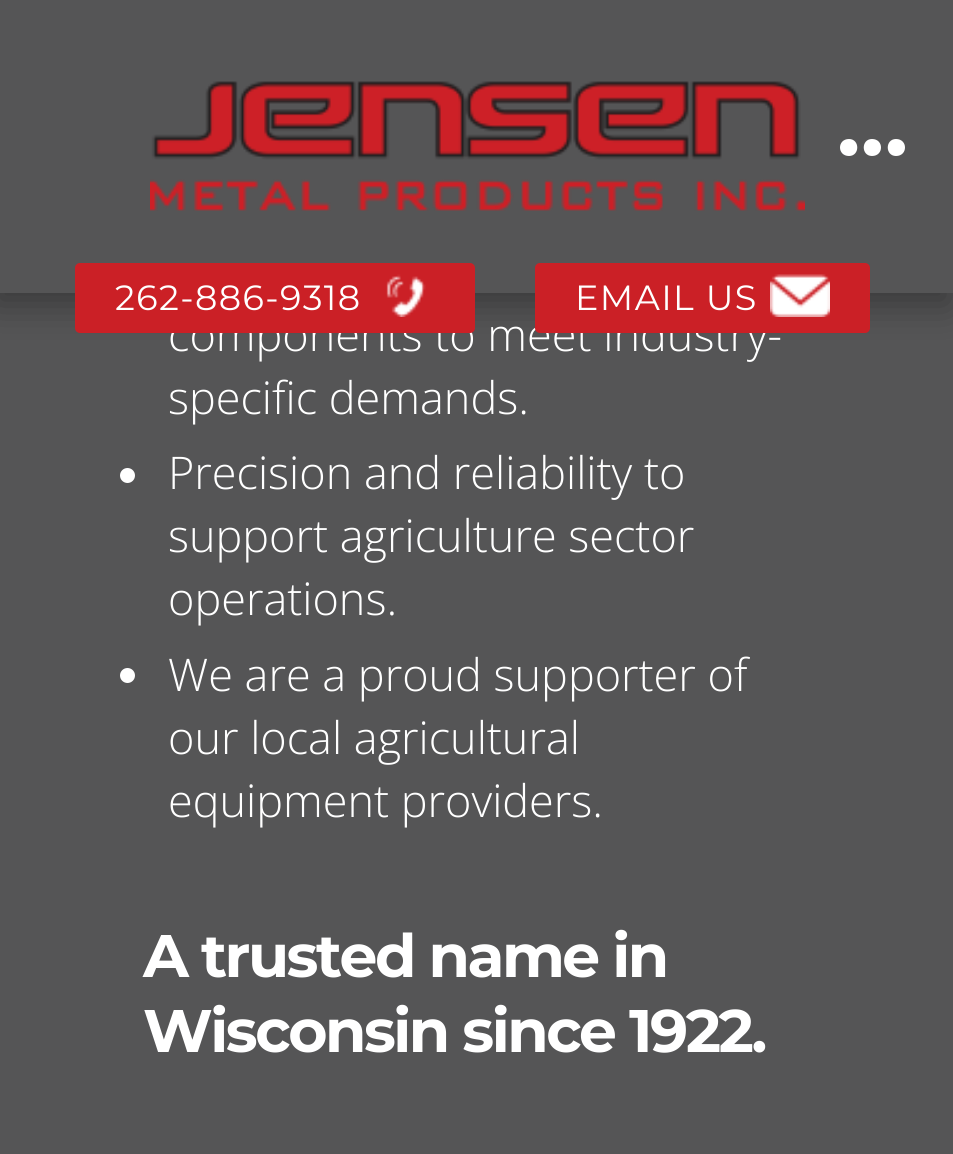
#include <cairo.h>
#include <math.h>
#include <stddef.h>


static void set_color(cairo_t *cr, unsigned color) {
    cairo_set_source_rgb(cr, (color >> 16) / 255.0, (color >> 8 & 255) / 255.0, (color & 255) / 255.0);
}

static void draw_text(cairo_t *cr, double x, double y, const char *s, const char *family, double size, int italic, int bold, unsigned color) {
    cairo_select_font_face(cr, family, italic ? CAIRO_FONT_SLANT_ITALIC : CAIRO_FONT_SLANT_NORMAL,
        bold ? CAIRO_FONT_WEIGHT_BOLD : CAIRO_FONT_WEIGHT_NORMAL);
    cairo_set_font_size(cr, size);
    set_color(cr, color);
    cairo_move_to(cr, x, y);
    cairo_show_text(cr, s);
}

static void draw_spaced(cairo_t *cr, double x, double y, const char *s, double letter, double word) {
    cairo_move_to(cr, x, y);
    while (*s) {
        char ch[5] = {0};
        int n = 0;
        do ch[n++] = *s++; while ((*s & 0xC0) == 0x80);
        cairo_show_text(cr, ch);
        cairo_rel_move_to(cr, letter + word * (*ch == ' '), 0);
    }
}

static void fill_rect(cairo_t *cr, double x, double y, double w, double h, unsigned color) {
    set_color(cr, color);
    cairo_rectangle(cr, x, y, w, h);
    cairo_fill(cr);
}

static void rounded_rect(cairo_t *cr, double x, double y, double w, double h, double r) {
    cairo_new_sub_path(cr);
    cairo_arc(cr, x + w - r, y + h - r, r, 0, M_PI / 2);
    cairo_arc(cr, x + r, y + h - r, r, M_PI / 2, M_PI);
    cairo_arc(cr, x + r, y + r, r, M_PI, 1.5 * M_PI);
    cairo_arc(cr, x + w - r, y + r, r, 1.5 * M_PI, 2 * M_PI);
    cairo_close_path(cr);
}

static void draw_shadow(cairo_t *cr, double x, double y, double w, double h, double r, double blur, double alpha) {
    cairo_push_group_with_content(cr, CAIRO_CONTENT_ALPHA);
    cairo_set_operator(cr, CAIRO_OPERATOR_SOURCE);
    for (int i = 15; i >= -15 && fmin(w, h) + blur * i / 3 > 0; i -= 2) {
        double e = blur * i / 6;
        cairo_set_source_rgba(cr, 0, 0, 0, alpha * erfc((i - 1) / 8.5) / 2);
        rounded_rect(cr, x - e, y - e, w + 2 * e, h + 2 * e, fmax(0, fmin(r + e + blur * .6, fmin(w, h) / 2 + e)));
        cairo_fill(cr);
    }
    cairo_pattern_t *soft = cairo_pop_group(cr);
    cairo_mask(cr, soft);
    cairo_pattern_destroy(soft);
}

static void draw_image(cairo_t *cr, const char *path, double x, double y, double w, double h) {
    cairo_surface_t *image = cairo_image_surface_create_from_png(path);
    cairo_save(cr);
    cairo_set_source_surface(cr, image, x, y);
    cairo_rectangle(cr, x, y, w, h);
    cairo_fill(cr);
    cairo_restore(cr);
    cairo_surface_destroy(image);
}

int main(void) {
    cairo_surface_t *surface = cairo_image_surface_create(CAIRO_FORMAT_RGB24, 953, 1154);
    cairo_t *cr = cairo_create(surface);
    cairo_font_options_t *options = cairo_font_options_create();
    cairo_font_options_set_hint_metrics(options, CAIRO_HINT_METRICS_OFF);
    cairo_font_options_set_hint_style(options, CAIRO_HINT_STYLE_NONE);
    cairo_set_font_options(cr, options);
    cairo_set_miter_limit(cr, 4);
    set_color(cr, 0x555556);
    cairo_paint(cr);
    set_color(cr, 0x000000);
    draw_shadow(cr, -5, 13, 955, 292, 0, 19, 0.33);
    fill_rect(cr, 0, 0, 953, 293, 0x555556);
    draw_image(cr, "assets/img1.png", 150, 81, 655, 130);
    set_color(cr, 0xFFFFFF);
    cairo_set_fill_rule(cr, CAIRO_FILL_RULE_EVEN_ODD);
    cairo_new_path(cr);
    cairo_move_to(cr, 849, 156);
    cairo_curve_to(cr, 837, 156, 837, 139, 849, 139);
    cairo_curve_to(cr, 860, 139, 860, 156, 849, 156);
    cairo_close_path(cr);
    cairo_move_to(cr, 872, 156);
    cairo_curve_to(cr, 861, 156, 861, 139, 872, 139);
    cairo_curve_to(cr, 884, 139, 884, 156, 872, 156);
    cairo_close_path(cr);
    cairo_move_to(cr, 896, 156);
    cairo_curve_to(cr, 885, 156, 885, 139, 896, 139);
    cairo_curve_to(cr, 908, 139, 908, 156, 896, 156);
    cairo_close_path(cr);
    cairo_fill(cr);
    draw_text(cr, 168, 351, "components to meet industry-", "Open Sans Light", 45, 0, 0, 0xFFFFFF);
    set_color(cr, 0xCB2026);
    rounded_rect(cr, 75, 263, 400, 70, 5);
    cairo_fill(cr);
    cairo_select_font_face(cr, "Montserrat", CAIRO_FONT_SLANT_NORMAL, CAIRO_FONT_WEIGHT_NORMAL);
    cairo_set_font_size(cr, 35);
    set_color(cr, 0xFFFFFF);
    draw_spaced(cr, 115, 310, "262-886-9318", 1.4, 0);
    draw_image(cr, "assets/img2.png", 386, 274, 40, 43);
    set_color(cr, 0xCB2026);
    rounded_rect(cr, 535, 263, 335, 70, 5);
    cairo_fill(cr);
    set_color(cr, 0xFFFFFF);
    draw_spaced(cr, 575, 310, "EMAIL US", 1.4, 0);
    draw_image(cr, "assets/img3.png", 770, 274, 60, 43);
    draw_text(cr, 168, 414, "specific demands.", "Open Sans Light", 45, 0, 0, 0xFFFFFF);
    cairo_new_path(cr);
    cairo_arc(cr, 127.5, 475.5, 7.5, 0, 2 * M_PI);
    cairo_fill(cr);
    draw_text(cr, 168, 489, "Precision and reliability to", "Open Sans Light", 45, 0, 0, 0xFFFFFF);
    draw_text(cr, 168, 552, "support agriculture sector", "Open Sans Light", 45, 0, 0, 0xFFFFFF);
    draw_text(cr, 168, 615, "operations.", "Open Sans Light", 45, 0, 0, 0xFFFFFF);
    cairo_new_path(cr);
    cairo_arc(cr, 127.5, 675.5, 7.5, 0, 2 * M_PI);
    cairo_fill(cr);
    draw_text(cr, 168, 691, "We are a proud supporter of", "Open Sans Light", 45, 0, 0, 0xFFFFFF);
    draw_text(cr, 168, 754, "our local agricultural", "Open Sans Light", 45, 0, 0, 0xFFFFFF);
    draw_text(cr, 168, 817, "equipment providers.", "Open Sans Light", 45, 0, 0, 0xFFFFFF);
    cairo_select_font_face(cr, "Montserrat", CAIRO_FONT_SLANT_NORMAL, CAIRO_FONT_WEIGHT_BOLD);
    cairo_set_font_size(cr, 60);
    draw_spaced(cr, 143, 977, "A trusted name in", -2.5, 0);
    draw_spaced(cr, 143, 1052, "Wisconsin since 1922.", -2.5, 0);
    cairo_surface_write_to_png(surface, "output.png");
    cairo_font_options_destroy(options);
    cairo_destroy(cr);
    cairo_surface_destroy(surface);
    return 0;
}
